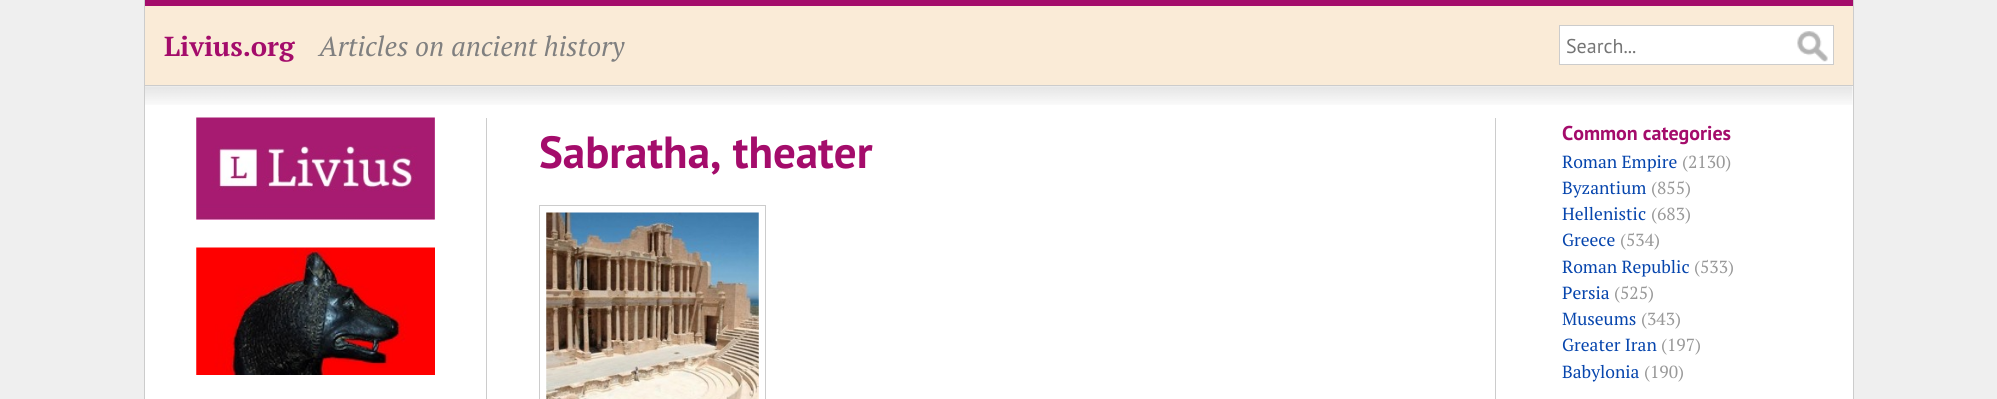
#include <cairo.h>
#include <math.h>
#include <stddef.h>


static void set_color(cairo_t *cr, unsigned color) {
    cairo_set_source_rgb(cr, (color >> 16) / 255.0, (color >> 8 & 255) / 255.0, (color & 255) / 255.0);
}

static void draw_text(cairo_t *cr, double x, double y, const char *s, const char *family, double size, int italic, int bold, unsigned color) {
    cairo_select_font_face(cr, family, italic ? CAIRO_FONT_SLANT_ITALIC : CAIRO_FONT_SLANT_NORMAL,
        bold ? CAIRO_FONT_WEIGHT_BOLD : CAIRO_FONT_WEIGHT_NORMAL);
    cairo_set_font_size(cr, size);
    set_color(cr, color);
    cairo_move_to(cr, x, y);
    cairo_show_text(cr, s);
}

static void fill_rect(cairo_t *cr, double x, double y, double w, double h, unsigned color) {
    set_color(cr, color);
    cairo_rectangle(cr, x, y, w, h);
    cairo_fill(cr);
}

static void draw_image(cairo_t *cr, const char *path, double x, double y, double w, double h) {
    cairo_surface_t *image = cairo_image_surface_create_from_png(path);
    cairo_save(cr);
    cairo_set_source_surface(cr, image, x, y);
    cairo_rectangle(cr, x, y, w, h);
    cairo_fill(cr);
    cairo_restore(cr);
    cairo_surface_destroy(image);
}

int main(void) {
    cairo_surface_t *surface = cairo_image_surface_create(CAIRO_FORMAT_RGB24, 1997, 399);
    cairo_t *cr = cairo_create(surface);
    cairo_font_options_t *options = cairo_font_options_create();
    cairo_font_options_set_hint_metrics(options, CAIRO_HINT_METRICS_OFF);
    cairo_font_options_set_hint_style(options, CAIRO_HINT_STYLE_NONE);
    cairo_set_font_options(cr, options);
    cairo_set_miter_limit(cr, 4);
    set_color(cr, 0xEFEFEF);
    cairo_paint(cr);
    fill_rect(cr, 145, 86, 1708, 313, 0xFFFFFF);
    fill_rect(cr, 1853, 0, 1, 399, 0xCCCCCC);
    fill_rect(cr, 144, 0, 1, 399, 0xCCCCCC);
    fill_rect(cr, 145, 6, 1708, 79, 0xFAEBD7);
    fill_rect(cr, 145, 0, 1708, 6, 0xA40C6B);
    fill_rect(cr, 145, 85, 1708, 1, 0xCCCCCC);
    draw_text(cr, 164, 56, "Livius.org", "PT Serif", 27.5, 0, 1, 0xA40C6B);
    draw_text(cr, 319, 56, "Articles on ancient history", "PT Serif", 27.5, 1, 0, 0x808080);
    fill_rect(cr, 1560, 26, 273, 38, 0xFFFFFF);
    draw_image(cr, "assets/img1.png", 1797, 31, 31, 31);
    cairo_rectangle(cr, 1559.5, 25.5, 274, 39);
    set_color(cr, 0xCCCCCC);
    cairo_set_line_width(cr, 1);
    cairo_stroke(cr);
    draw_text(cr, 1566, 53, "Search...", "PT Sans", 20, 0, 0, 0x757575);
    draw_image(cr, "assets/img2.png", 145, 86, 1708, 19);
    draw_image(cr, "assets/img3.png", 196, 117, 239, 103);
    draw_image(cr, "assets/img4.png", 196, 247, 239, 128);
    fill_rect(cr, 1495, 118, 1, 281, 0xCCCCCC);
    fill_rect(cr, 486, 118, 1, 281, 0xCCCCCC);
    draw_text(cr, 539, 168, "Sabratha, theater", "PT Sans", 45, 0, 1, 0xA40C6B);
    fill_rect(cr, 539, 205, 227, 1, 0xCCCCCC);
    fill_rect(cr, 765, 205, 1, 194, 0xCCCCCC);
    fill_rect(cr, 539, 205, 1, 194, 0xCCCCCC);
    draw_image(cr, "assets/img5.png", 546, 212, 213, 187);
    draw_text(cr, 1562, 140, "Common categories", "PT Sans", 20, 0, 1, 0xA40C6B);
    draw_text(cr, 1562, 168, "Roman Empire", "PT Serif", 17.5, 0, 0, 0x0645AD);
    draw_text(cr, 1682, 168, "(2130)", "PT Serif", 17.5, 0, 0, 0x999999);
    draw_text(cr, 1562, 194, "Byzantium", "PT Serif", 17.5, 0, 0, 0x0645AD);
    draw_text(cr, 1651, 194, "(855)", "PT Serif", 17.5, 0, 0, 0x999999);
    draw_text(cr, 1562, 220, "Hellenistic", "PT Serif", 17.5, 0, 0, 0x0645AD);
    draw_text(cr, 1651, 220, "(683)", "PT Serif", 17.5, 0, 0, 0x999999);
    draw_text(cr, 1562, 246, "Greece", "PT Serif", 17.5, 0, 0, 0x0645AD);
    draw_text(cr, 1620, 246, "(534)", "PT Serif", 17.5, 0, 0, 0x999999);
    draw_text(cr, 1562, 273, "Roman Republic", "PT Serif", 17.5, 0, 0, 0x0645AD);
    draw_text(cr, 1694, 273, "(533)", "PT Serif", 17.5, 0, 0, 0x999999);
    draw_text(cr, 1562, 299, "Persia", "PT Serif", 17.5, 0, 0, 0x0645AD);
    draw_text(cr, 1614, 299, "(525)", "PT Serif", 17.5, 0, 0, 0x999999);
    draw_text(cr, 1562, 325, "Museums", "PT Serif", 17.5, 0, 0, 0x0645AD);
    draw_text(cr, 1641, 325, "(343)", "PT Serif", 17.5, 0, 0, 0x999999);
    draw_text(cr, 1562, 351, "Greater Iran", "PT Serif", 17.5, 0, 0, 0x0645AD);
    draw_text(cr, 1661, 351, "(197)", "PT Serif", 17.5, 0, 0, 0x999999);
    draw_text(cr, 1562, 378, "Babylonia", "PT Serif", 17.5, 0, 0, 0x0645AD);
    draw_text(cr, 1644, 378, "(190)", "PT Serif", 17.5, 0, 0, 0x999999);
    cairo_surface_write_to_png(surface, "output.png");
    cairo_font_options_destroy(options);
    cairo_destroy(cr);
    cairo_surface_destroy(surface);
    return 0;
}
